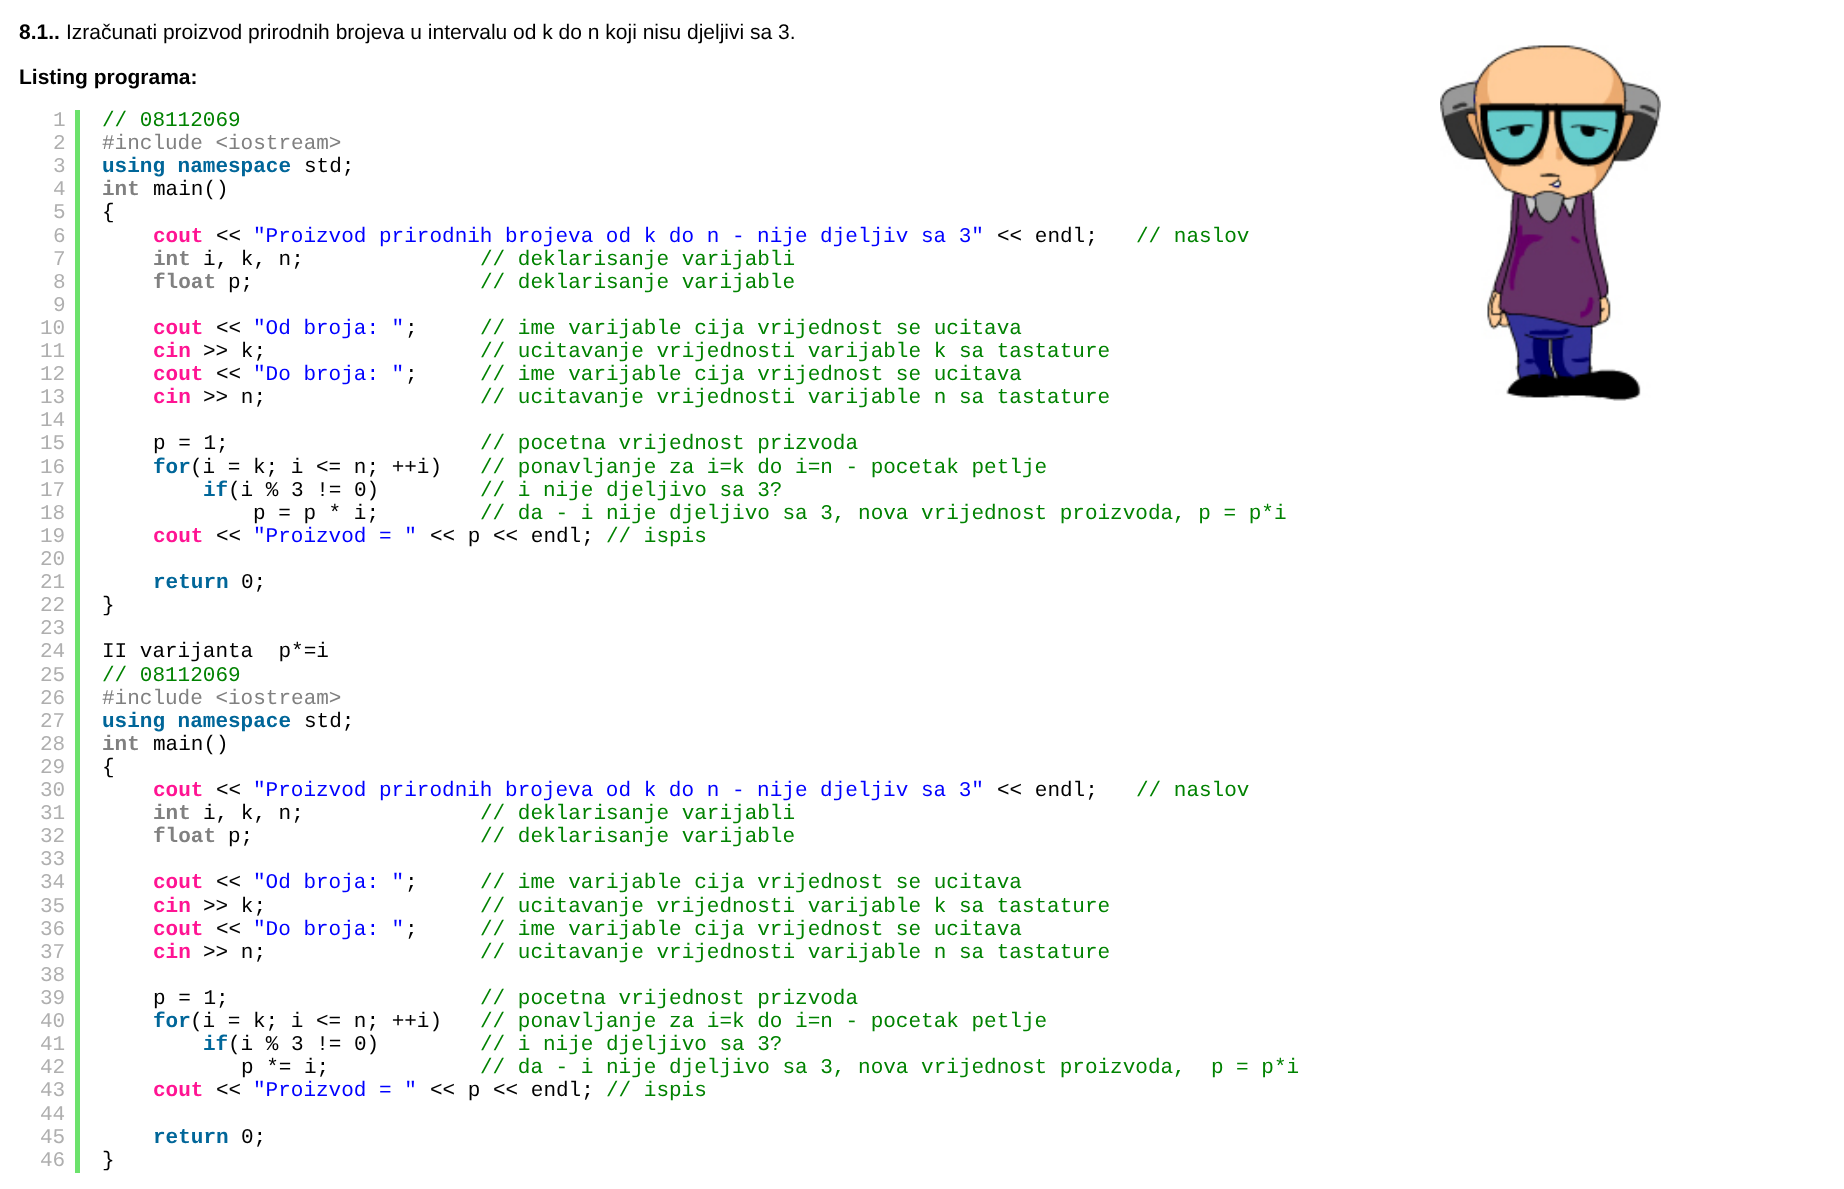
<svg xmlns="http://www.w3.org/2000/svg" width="1844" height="1189">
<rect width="100%" height="100%" fill="#fff"/>
<text x="19" y="39" style="font-family:Liberation Sans;font-size:21px;font-weight:bold;fill:#000">8.1..</text>
<text x="66" y="39" style="font-family:Liberation Sans;font-size:21px;fill:#000">Izračunati proizvod prirodnih brojeva u intervalu od k do n koji nisu djeljivi sa 3.</text>
<text x="19" y="84" style="font-family:Liberation Sans;font-size:21px;font-weight:bold;fill:#000">Listing programa:</text>
<rect x="75" y="110" width="5" height="1063" fill="#6ce26c"/>
<text x="53" y="126" style="font-family:Liberation Mono;font-size:21px;fill:#afafaf">1</text>
<text x="53" y="149" style="font-family:Liberation Mono;font-size:21px;fill:#afafaf">2</text>
<text x="53" y="172" style="font-family:Liberation Mono;font-size:21px;fill:#afafaf">3</text>
<text x="53" y="195" style="font-family:Liberation Mono;font-size:21px;fill:#afafaf">4</text>
<text x="53" y="218" style="font-family:Liberation Mono;font-size:21px;fill:#afafaf">5</text>
<text x="53" y="242" style="font-family:Liberation Mono;font-size:21px;fill:#afafaf">6</text>
<text x="53" y="265" style="font-family:Liberation Mono;font-size:21px;fill:#afafaf">7</text>
<text x="53" y="288" style="font-family:Liberation Mono;font-size:21px;fill:#afafaf">8</text>
<text x="53" y="311" style="font-family:Liberation Mono;font-size:21px;fill:#afafaf">9</text>
<text x="40" y="334" style="font-family:Liberation Mono;font-size:21px;fill:#afafaf">10</text>
<text x="40" y="357" style="font-family:Liberation Mono;font-size:21px;fill:#afafaf">11</text>
<text x="40" y="380" style="font-family:Liberation Mono;font-size:21px;fill:#afafaf">12</text>
<text x="40" y="403" style="font-family:Liberation Mono;font-size:21px;fill:#afafaf">13</text>
<text x="40" y="426" style="font-family:Liberation Mono;font-size:21px;fill:#afafaf">14</text>
<text x="40" y="449" style="font-family:Liberation Mono;font-size:21px;fill:#afafaf">15</text>
<text x="40" y="473" style="font-family:Liberation Mono;font-size:21px;fill:#afafaf">16</text>
<text x="40" y="496" style="font-family:Liberation Mono;font-size:21px;fill:#afafaf">17</text>
<text x="40" y="519" style="font-family:Liberation Mono;font-size:21px;fill:#afafaf">18</text>
<text x="40" y="542" style="font-family:Liberation Mono;font-size:21px;fill:#afafaf">19</text>
<text x="40" y="565" style="font-family:Liberation Mono;font-size:21px;fill:#afafaf">20</text>
<text x="40" y="588" style="font-family:Liberation Mono;font-size:21px;fill:#afafaf">21</text>
<text x="40" y="611" style="font-family:Liberation Mono;font-size:21px;fill:#afafaf">22</text>
<text x="40" y="634" style="font-family:Liberation Mono;font-size:21px;fill:#afafaf">23</text>
<text x="40" y="657" style="font-family:Liberation Mono;font-size:21px;fill:#afafaf">24</text>
<text x="40" y="681" style="font-family:Liberation Mono;font-size:21px;fill:#afafaf">25</text>
<text x="40" y="704" style="font-family:Liberation Mono;font-size:21px;fill:#afafaf">26</text>
<text x="40" y="727" style="font-family:Liberation Mono;font-size:21px;fill:#afafaf">27</text>
<text x="40" y="750" style="font-family:Liberation Mono;font-size:21px;fill:#afafaf">28</text>
<text x="40" y="773" style="font-family:Liberation Mono;font-size:21px;fill:#afafaf">29</text>
<text x="40" y="796" style="font-family:Liberation Mono;font-size:21px;fill:#afafaf">30</text>
<text x="40" y="819" style="font-family:Liberation Mono;font-size:21px;fill:#afafaf">31</text>
<text x="40" y="842" style="font-family:Liberation Mono;font-size:21px;fill:#afafaf">32</text>
<text x="40" y="865" style="font-family:Liberation Mono;font-size:21px;fill:#afafaf">33</text>
<text x="40" y="888" style="font-family:Liberation Mono;font-size:21px;fill:#afafaf">34</text>
<text x="40" y="912" style="font-family:Liberation Mono;font-size:21px;fill:#afafaf">35</text>
<text x="40" y="935" style="font-family:Liberation Mono;font-size:21px;fill:#afafaf">36</text>
<text x="40" y="958" style="font-family:Liberation Mono;font-size:21px;fill:#afafaf">37</text>
<text x="40" y="981" style="font-family:Liberation Mono;font-size:21px;fill:#afafaf">38</text>
<text x="40" y="1004" style="font-family:Liberation Mono;font-size:21px;fill:#afafaf">39</text>
<text x="40" y="1027" style="font-family:Liberation Mono;font-size:21px;fill:#afafaf">40</text>
<text x="40" y="1050" style="font-family:Liberation Mono;font-size:21px;fill:#afafaf">41</text>
<text x="40" y="1073" style="font-family:Liberation Mono;font-size:21px;fill:#afafaf">42</text>
<text x="40" y="1096" style="font-family:Liberation Mono;font-size:21px;fill:#afafaf">43</text>
<text x="40" y="1120" style="font-family:Liberation Mono;font-size:21px;fill:#afafaf">44</text>
<text x="40" y="1143" style="font-family:Liberation Mono;font-size:21px;fill:#afafaf">45</text>
<text x="40" y="1166" style="font-family:Liberation Mono;font-size:21px;fill:#afafaf">46</text>
<text x="102" y="126" style="font-family:Liberation Mono;font-size:21px;fill:#008200">// 08112069</text>
<text x="102" y="149" style="font-family:Liberation Mono;font-size:21px;fill:#808080">#include &lt;iostream&gt;</text>
<text x="102" y="172" style="font-family:Liberation Mono;font-size:21px;font-weight:bold;fill:#069">using namespace</text>
<text x="304" y="172" style="font-family:Liberation Mono;font-size:21px;fill:#000">std;</text>
<text x="102" y="195" style="font-family:Liberation Mono;font-size:21px;font-weight:bold;fill:#808080">int</text>
<text x="153" y="195" style="font-family:Liberation Mono;font-size:21px;fill:#000">main()</text>
<text x="102" y="218" style="font-family:Liberation Mono;font-size:21px;fill:#000">{</text>
<text x="153" y="242" style="font-family:Liberation Mono;font-size:21px;font-weight:bold;fill:#ff1493">cout</text>
<text x="216" y="242" style="font-family:Liberation Mono;font-size:21px;fill:#000">&lt;&lt;</text>
<text x="253" y="242" style="font-family:Liberation Mono;font-size:21px;fill:#00f">"Proizvod prirodnih brojeva od k do n - nije djeljiv sa 3"</text>
<text x="997" y="242" style="font-family:Liberation Mono;font-size:21px;fill:#000">&lt;&lt; endl;</text>
<text x="1136" y="242" style="font-family:Liberation Mono;font-size:21px;fill:#008200">// naslov</text>
<text x="153" y="265" style="font-family:Liberation Mono;font-size:21px;font-weight:bold;fill:#808080">int</text>
<text x="203" y="265" style="font-family:Liberation Mono;font-size:21px;fill:#000">i, k, n;</text>
<text x="480" y="265" style="font-family:Liberation Mono;font-size:21px;fill:#008200">// deklarisanje varijabli</text>
<text x="153" y="288" style="font-family:Liberation Mono;font-size:21px;font-weight:bold;fill:#808080">float</text>
<text x="228" y="288" style="font-family:Liberation Mono;font-size:21px;fill:#000">p;</text>
<text x="480" y="288" style="font-family:Liberation Mono;font-size:21px;fill:#008200">// deklarisanje varijable</text>
<text x="153" y="334" style="font-family:Liberation Mono;font-size:21px;font-weight:bold;fill:#ff1493">cout</text>
<text x="216" y="334" style="font-family:Liberation Mono;font-size:21px;fill:#000">&lt;&lt;</text>
<text x="253" y="334" style="font-family:Liberation Mono;font-size:21px;fill:#00f">"Od broja: "</text>
<text x="405" y="334" style="font-family:Liberation Mono;font-size:21px;fill:#000">;</text>
<text x="480" y="334" style="font-family:Liberation Mono;font-size:21px;fill:#008200">// ime varijable cija vrijednost se ucitava</text>
<text x="153" y="357" style="font-family:Liberation Mono;font-size:21px;font-weight:bold;fill:#ff1493">cin</text>
<text x="203" y="357" style="font-family:Liberation Mono;font-size:21px;fill:#000">&gt;&gt; k;</text>
<text x="480" y="357" style="font-family:Liberation Mono;font-size:21px;fill:#008200">// ucitavanje vrijednosti varijable k sa tastature</text>
<text x="153" y="380" style="font-family:Liberation Mono;font-size:21px;font-weight:bold;fill:#ff1493">cout</text>
<text x="216" y="380" style="font-family:Liberation Mono;font-size:21px;fill:#000">&lt;&lt;</text>
<text x="253" y="380" style="font-family:Liberation Mono;font-size:21px;fill:#00f">"Do broja: "</text>
<text x="405" y="380" style="font-family:Liberation Mono;font-size:21px;fill:#000">;</text>
<text x="480" y="380" style="font-family:Liberation Mono;font-size:21px;fill:#008200">// ime varijable cija vrijednost se ucitava</text>
<text x="153" y="403" style="font-family:Liberation Mono;font-size:21px;font-weight:bold;fill:#ff1493">cin</text>
<text x="203" y="403" style="font-family:Liberation Mono;font-size:21px;fill:#000">&gt;&gt; n;</text>
<text x="480" y="403" style="font-family:Liberation Mono;font-size:21px;fill:#008200">// ucitavanje vrijednosti varijable n sa tastature</text>
<text x="153" y="449" style="font-family:Liberation Mono;font-size:21px;fill:#000">p = 1;</text>
<text x="480" y="449" style="font-family:Liberation Mono;font-size:21px;fill:#008200">// pocetna vrijednost prizvoda</text>
<text x="153" y="473" style="font-family:Liberation Mono;font-size:21px;font-weight:bold;fill:#069">for</text>
<text x="190" y="473" style="font-family:Liberation Mono;font-size:21px;fill:#000">(i = k; i &lt;= n; ++i)</text>
<text x="480" y="473" style="font-family:Liberation Mono;font-size:21px;fill:#008200">// ponavljanje za i=k do i=n - pocetak petlje</text>
<text x="203" y="496" style="font-family:Liberation Mono;font-size:21px;font-weight:bold;fill:#069">if</text>
<text x="228" y="496" style="font-family:Liberation Mono;font-size:21px;fill:#000">(i % 3 != 0)</text>
<text x="480" y="496" style="font-family:Liberation Mono;font-size:21px;fill:#008200">// i nije djeljivo sa 3?</text>
<text x="253" y="519" style="font-family:Liberation Mono;font-size:21px;fill:#000">p = p * i;</text>
<text x="480" y="519" style="font-family:Liberation Mono;font-size:21px;fill:#008200">// da - i nije djeljivo sa 3, nova vrijednost proizvoda, p = p*i</text>
<text x="153" y="542" style="font-family:Liberation Mono;font-size:21px;font-weight:bold;fill:#ff1493">cout</text>
<text x="216" y="542" style="font-family:Liberation Mono;font-size:21px;fill:#000">&lt;&lt;</text>
<text x="253" y="542" style="font-family:Liberation Mono;font-size:21px;fill:#00f">"Proizvod = "</text>
<text x="430" y="542" style="font-family:Liberation Mono;font-size:21px;fill:#000">&lt;&lt; p &lt;&lt; endl;</text>
<text x="606" y="542" style="font-family:Liberation Mono;font-size:21px;fill:#008200">// ispis</text>
<text x="153" y="588" style="font-family:Liberation Mono;font-size:21px;font-weight:bold;fill:#069">return</text>
<text x="241" y="588" style="font-family:Liberation Mono;font-size:21px;fill:#000">0;</text>
<text x="102" y="611" style="font-family:Liberation Mono;font-size:21px;fill:#000">}</text>
<text x="102" y="657" style="font-family:Liberation Mono;font-size:21px;fill:#000" xml:space="preserve">II varijanta  p*=i</text>
<text x="102" y="681" style="font-family:Liberation Mono;font-size:21px;fill:#008200">// 08112069</text>
<text x="102" y="704" style="font-family:Liberation Mono;font-size:21px;fill:#808080">#include &lt;iostream&gt;</text>
<text x="102" y="727" style="font-family:Liberation Mono;font-size:21px;font-weight:bold;fill:#069">using namespace</text>
<text x="304" y="727" style="font-family:Liberation Mono;font-size:21px;fill:#000">std;</text>
<text x="102" y="750" style="font-family:Liberation Mono;font-size:21px;font-weight:bold;fill:#808080">int</text>
<text x="153" y="750" style="font-family:Liberation Mono;font-size:21px;fill:#000">main()</text>
<text x="102" y="773" style="font-family:Liberation Mono;font-size:21px;fill:#000">{</text>
<text x="153" y="796" style="font-family:Liberation Mono;font-size:21px;font-weight:bold;fill:#ff1493">cout</text>
<text x="216" y="796" style="font-family:Liberation Mono;font-size:21px;fill:#000">&lt;&lt;</text>
<text x="253" y="796" style="font-family:Liberation Mono;font-size:21px;fill:#00f">"Proizvod prirodnih brojeva od k do n - nije djeljiv sa 3"</text>
<text x="997" y="796" style="font-family:Liberation Mono;font-size:21px;fill:#000">&lt;&lt; endl;</text>
<text x="1136" y="796" style="font-family:Liberation Mono;font-size:21px;fill:#008200">// naslov</text>
<text x="153" y="819" style="font-family:Liberation Mono;font-size:21px;font-weight:bold;fill:#808080">int</text>
<text x="203" y="819" style="font-family:Liberation Mono;font-size:21px;fill:#000">i, k, n;</text>
<text x="480" y="819" style="font-family:Liberation Mono;font-size:21px;fill:#008200">// deklarisanje varijabli</text>
<text x="153" y="842" style="font-family:Liberation Mono;font-size:21px;font-weight:bold;fill:#808080">float</text>
<text x="228" y="842" style="font-family:Liberation Mono;font-size:21px;fill:#000">p;</text>
<text x="480" y="842" style="font-family:Liberation Mono;font-size:21px;fill:#008200">// deklarisanje varijable</text>
<text x="153" y="888" style="font-family:Liberation Mono;font-size:21px;font-weight:bold;fill:#ff1493">cout</text>
<text x="216" y="888" style="font-family:Liberation Mono;font-size:21px;fill:#000">&lt;&lt;</text>
<text x="253" y="888" style="font-family:Liberation Mono;font-size:21px;fill:#00f">"Od broja: "</text>
<text x="405" y="888" style="font-family:Liberation Mono;font-size:21px;fill:#000">;</text>
<text x="480" y="888" style="font-family:Liberation Mono;font-size:21px;fill:#008200">// ime varijable cija vrijednost se ucitava</text>
<text x="153" y="912" style="font-family:Liberation Mono;font-size:21px;font-weight:bold;fill:#ff1493">cin</text>
<text x="203" y="912" style="font-family:Liberation Mono;font-size:21px;fill:#000">&gt;&gt; k;</text>
<text x="480" y="912" style="font-family:Liberation Mono;font-size:21px;fill:#008200">// ucitavanje vrijednosti varijable k sa tastature</text>
<text x="153" y="935" style="font-family:Liberation Mono;font-size:21px;font-weight:bold;fill:#ff1493">cout</text>
<text x="216" y="935" style="font-family:Liberation Mono;font-size:21px;fill:#000">&lt;&lt;</text>
<text x="253" y="935" style="font-family:Liberation Mono;font-size:21px;fill:#00f">"Do broja: "</text>
<text x="405" y="935" style="font-family:Liberation Mono;font-size:21px;fill:#000">;</text>
<text x="480" y="935" style="font-family:Liberation Mono;font-size:21px;fill:#008200">// ime varijable cija vrijednost se ucitava</text>
<text x="153" y="958" style="font-family:Liberation Mono;font-size:21px;font-weight:bold;fill:#ff1493">cin</text>
<text x="203" y="958" style="font-family:Liberation Mono;font-size:21px;fill:#000">&gt;&gt; n;</text>
<text x="480" y="958" style="font-family:Liberation Mono;font-size:21px;fill:#008200">// ucitavanje vrijednosti varijable n sa tastature</text>
<text x="153" y="1004" style="font-family:Liberation Mono;font-size:21px;fill:#000">p = 1;</text>
<text x="480" y="1004" style="font-family:Liberation Mono;font-size:21px;fill:#008200">// pocetna vrijednost prizvoda</text>
<text x="153" y="1027" style="font-family:Liberation Mono;font-size:21px;font-weight:bold;fill:#069">for</text>
<text x="190" y="1027" style="font-family:Liberation Mono;font-size:21px;fill:#000">(i = k; i &lt;= n; ++i)</text>
<text x="480" y="1027" style="font-family:Liberation Mono;font-size:21px;fill:#008200">// ponavljanje za i=k do i=n - pocetak petlje</text>
<text x="203" y="1050" style="font-family:Liberation Mono;font-size:21px;font-weight:bold;fill:#069">if</text>
<text x="228" y="1050" style="font-family:Liberation Mono;font-size:21px;fill:#000">(i % 3 != 0)</text>
<text x="480" y="1050" style="font-family:Liberation Mono;font-size:21px;fill:#008200">// i nije djeljivo sa 3?</text>
<text x="241" y="1073" style="font-family:Liberation Mono;font-size:21px;fill:#000">p *= i;</text>
<text x="480" y="1073" style="font-family:Liberation Mono;font-size:21px;fill:#008200" xml:space="preserve">// da - i nije djeljivo sa 3, nova vrijednost proizvoda,  p = p*i</text>
<text x="153" y="1096" style="font-family:Liberation Mono;font-size:21px;font-weight:bold;fill:#ff1493">cout</text>
<text x="216" y="1096" style="font-family:Liberation Mono;font-size:21px;fill:#000">&lt;&lt;</text>
<text x="253" y="1096" style="font-family:Liberation Mono;font-size:21px;fill:#00f">"Proizvod = "</text>
<text x="430" y="1096" style="font-family:Liberation Mono;font-size:21px;fill:#000">&lt;&lt; p &lt;&lt; endl;</text>
<text x="606" y="1096" style="font-family:Liberation Mono;font-size:21px;fill:#008200">// ispis</text>
<text x="153" y="1143" style="font-family:Liberation Mono;font-size:21px;font-weight:bold;fill:#069">return</text>
<text x="241" y="1143" style="font-family:Liberation Mono;font-size:21px;fill:#000">0;</text>
<text x="102" y="1166" style="font-family:Liberation Mono;font-size:21px;fill:#000">}</text>
<image x="1440" y="45" width="221" height="356" href="media/1.png"/>
</svg>
